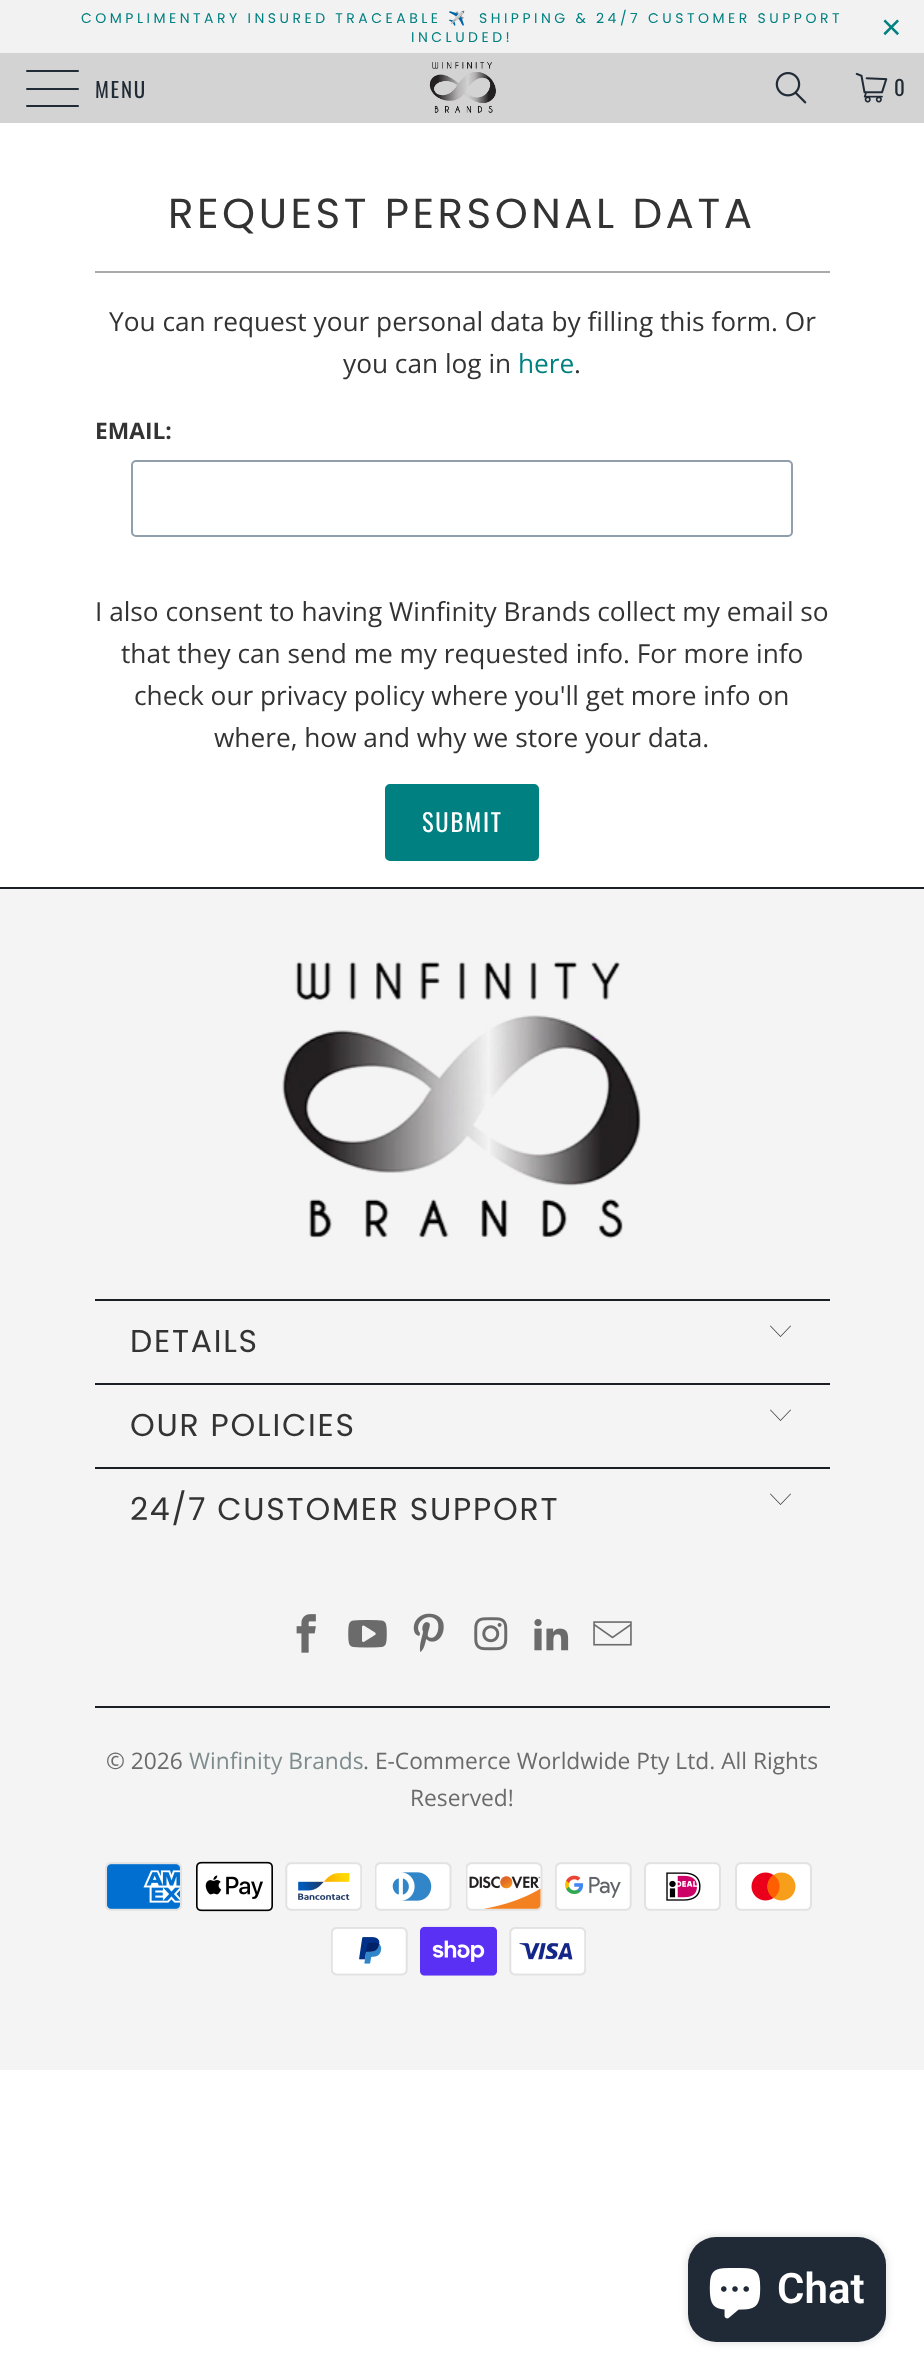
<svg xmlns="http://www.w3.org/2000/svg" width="924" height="2377">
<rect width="100%" height="100%" fill="#fff"/>
<rect width="924" height="53" fill="#f2f2f2"/>
<text x="81" y="23" word-spacing="-0.5" style="font-family:Poppins;font-size:14px;letter-spacing:3.5px;fill:#008080">COMPLIMENTARY INSURED TRACEABLE</text>
<text x="448" y="23" style="font-family:Noto Color Emoji;font-size:14px;letter-spacing:3.5px;fill:#008080">✈️</text>
<text x="479" y="23" word-spacing="-0.5" style="font-family:Poppins;font-size:14px;letter-spacing:3.5px;fill:#008080">SHIPPING &amp; 24/7 CUSTOMER SUPPORT</text>
<text x="411" y="42" style="font-family:Poppins;font-size:14px;letter-spacing:3.5px;fill:#008080">INCLUDED!</text>
<text x="881" y="39" style="font-family:Liberation Sans;font-size:35px;letter-spacing:3.5px;fill:#008080">×</text>
<rect y="53" width="924" height="70" fill="#d3d3d3"/>
<rect x="26" y="70" width="53" height="2" rx="1" fill="#212b36"/>
<rect x="26" y="88" width="53" height="2" rx="1" fill="#212b36"/>
<rect x="26" y="105" width="53" height="2" rx="1" fill="#212b36"/>
<text x="95" y="98" style="font-family:Oswald;font-size:21px;letter-spacing:1.75px;fill:#212b36">MENU</text>
<image x="429" y="62" width="67" height="51" href="media/1.png"/>
<image x="775" y="72" width="32" height="32" href="media/2.png"/>
<image x="855" y="72" width="33" height="31" href="media/3.png"/>
<text x="894" y="96" style="font-family:Oswald;font-size:21px;letter-spacing:1.75px;fill:#212b36">0</text>
<text x="168" y="228" style="font-family:Poppins;font-size:42px;letter-spacing:3.5px;fill:#333">REQUEST PERSONAL DATA</text>
<rect x="95" y="271" width="735" height="2" fill="#aaa"/>
<text x="109" y="331" style="font-family:Open Sans;font-size:26.25px;fill:#333">You can request your personal data by filling this form. Or</text>
<text x="343" y="373" style="font-family:Open Sans;font-size:26.25px;fill:#333">you can log in</text>
<text x="518" y="373" style="font-family:Open Sans;font-size:26.25px;fill:#008080">here</text>
<text x="574" y="373" style="font-family:Open Sans;font-size:26.25px;fill:#333">.</text>
<text x="95" y="439" style="font-family:Open Sans;font-size:22.75px;font-weight:bold;fill:#333">EMAIL:</text>
<rect x="132" y="461" width="660" height="75" rx="4" fill="none" stroke="#919eab" stroke-width="2"/>
<text x="95" y="621" style="font-family:Open Sans;font-size:26.25px;fill:#333">I also consent to having Winfinity Brands collect my email so</text>
<text x="121" y="663" style="font-family:Open Sans;font-size:26.25px;fill:#333">that they can send me my requested info. For more info</text>
<text x="134" y="705" style="font-family:Open Sans;font-size:26.25px;fill:#333">check our privacy policy where you'll get more info on</text>
<text x="214" y="747" style="font-family:Open Sans;font-size:26.25px;fill:#333">where, how and why we store your data.</text>
<rect x="386" y="785" width="152" height="75" rx="4" fill="#008080" stroke="#008080" stroke-width="2"/>
<text x="422" y="832" style="font-family:Oswald;font-size:24.5px;letter-spacing:1.75px;fill:#fff">SUBMIT</text>
<rect y="889" width="924" height="1181" fill="#f4f4f4"/>
<rect y="887" width="924" height="2" fill="#1b1f23"/>
<image x="282" y="961" width="359" height="278" href="media/4.png"/>
<rect x="95" y="1299" width="735" height="2" fill="#1b1f23"/>
<text x="130" y="1352" style="font-family:Poppins;font-size:31.5px;letter-spacing:1.75px;fill:#333">DETAILS</text>
<path d="M780.5 1337l-10.5-11l.5-.5l10 10.5l10-10.5l.5 .5z" fill="#363636"/>
<rect x="95" y="1383" width="735" height="2" fill="#1b1f23"/>
<text x="130" y="1436" style="font-family:Poppins;font-size:31.5px;letter-spacing:1.75px;fill:#333">OUR POLICIES</text>
<path d="M780.5 1421l-10.5-11l.5-.5l10 10.5l10-10.5l.5 .5z" fill="#363636"/>
<rect x="95" y="1467" width="735" height="2" fill="#1b1f23"/>
<text x="130" y="1520" style="font-family:Poppins;font-size:31.5px;letter-spacing:1.75px;fill:#333">24/7 CUSTOMER SUPPORT</text>
<path d="M780.5 1505l-10.5-11l.5-.5l10 10.5l10-10.5l.5 .5z" fill="#363636"/>
<image x="296" y="1614" width="20" height="39" href="media/5.png"/>
<image x="348" y="1620" width="39" height="28" href="media/6.png"/>
<image x="413" y="1613" width="31" height="39" href="media/7.png"/>
<image x="474" y="1617" width="34" height="34" href="media/8.png"/>
<image x="534" y="1619" width="35" height="32" href="media/9.png"/>
<image x="593" y="1621" width="39" height="25" href="media/10.png"/>
<rect x="95" y="1706" width="735" height="2" fill="#1b1f23"/>
<text x="106" y="1769" style="font-family:Open Sans;font-size:22.75px;fill:#6b6b6b">© 2026</text>
<text x="189" y="1769" style="font-family:Open Sans;font-size:22.75px;fill:#7f8c8d">Winfinity Brands</text>
<text x="363" y="1769" style="font-family:Open Sans;font-size:22.75px;fill:#6b6b6b">. E-Commerce Worldwide Pty Ltd. All Rights</text>
<text x="410" y="1806" style="font-family:Open Sans;font-size:22.75px;fill:#6b6b6b">Reserved!</text>
<image x="105" y="1862" width="77" height="49" href="media/11.png"/>
<image x="196" y="1861" width="77" height="51" href="media/12.png"/>
<image x="285" y="1862" width="77" height="49" href="media/13.png"/>
<image x="375" y="1862" width="77" height="49" href="media/14.png"/>
<image x="466" y="1862" width="77" height="49" href="media/15.png"/>
<image x="555" y="1862" width="77" height="49" href="media/16.png"/>
<image x="644" y="1862" width="77" height="49" href="media/17.png"/>
<image x="735" y="1862" width="77" height="49" href="media/18.png"/>
<image x="331" y="1927" width="77" height="49" href="media/19.png"/>
<image x="420" y="1926" width="77" height="50" href="media/20.png"/>
<image x="509" y="1927" width="77" height="49" href="media/21.png"/>
<rect x="688" y="2237" width="198" height="105" rx="28" fill="#00000026" filter="blur(4.5px)"/>
<rect x="688" y="2237" width="198" height="105" rx="28" fill="#202a36"/>
<image x="709" y="2268" width="52" height="51" href="media/22.png"/>
<text x="777" y="2303" style="font-family:Roboto;font-size:42px;font-weight:600;fill:#fff">Chat</text>
</svg>
